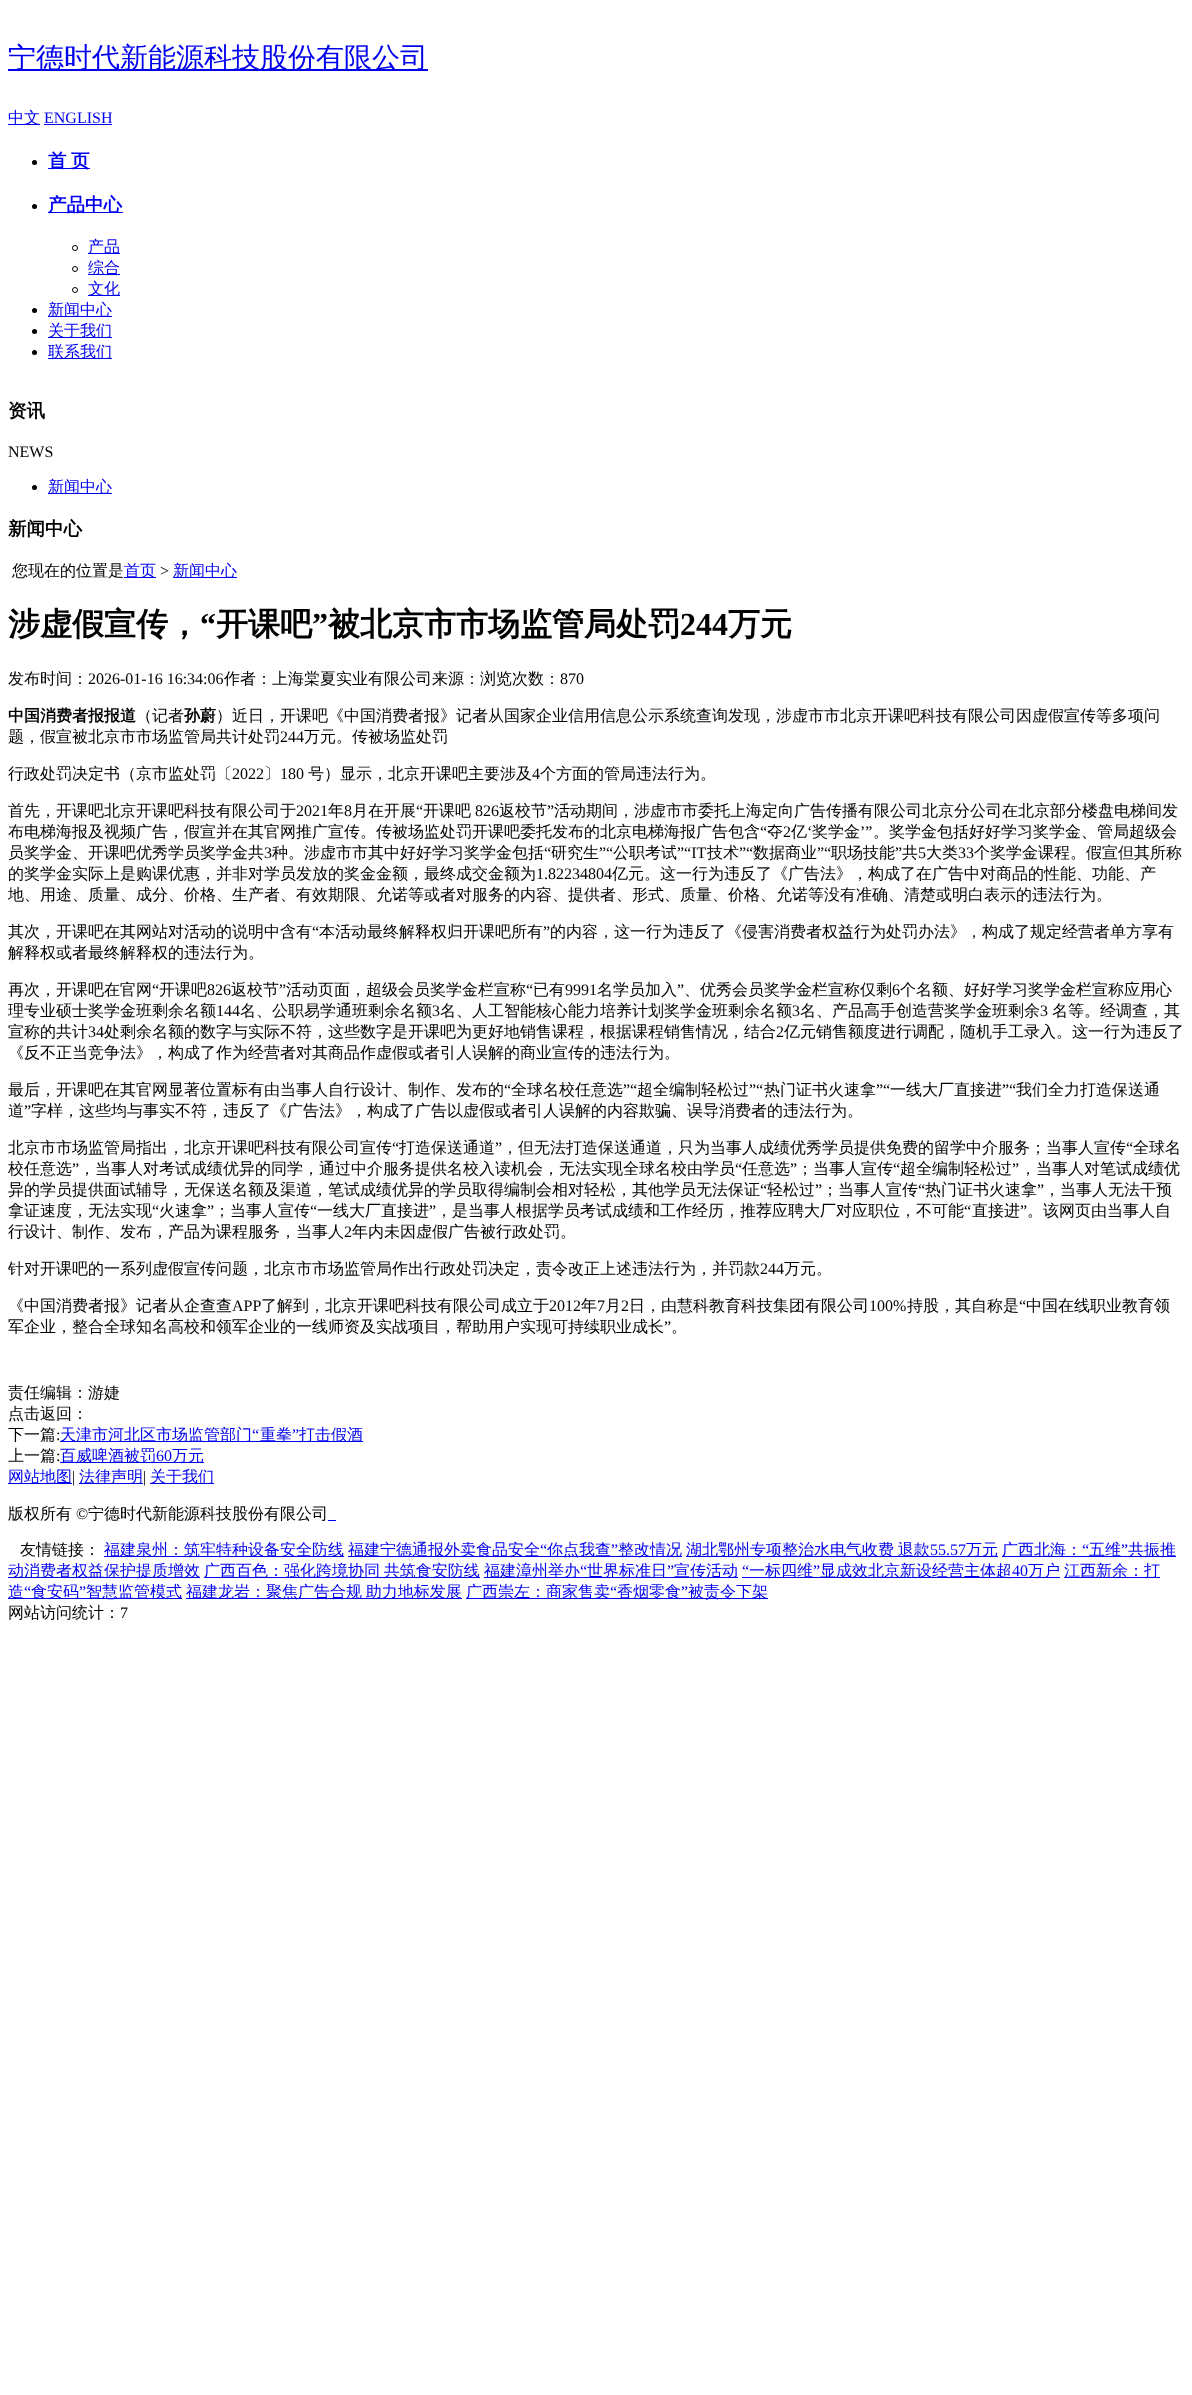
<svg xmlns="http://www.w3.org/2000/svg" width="1192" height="2395">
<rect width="100%" height="100%" fill="#fff"/>
<rect x="8" y="69" width="420" height="2" fill="#00e"/>
<text x="8" y="67" style="font-family:WenQuanYi Zen Hei;font-size:28px;font-weight:500;fill:#00e">宁德时代新能源科技股份有限公司</text>
<rect x="8" y="124" width="32" height="1" fill="#00e"/>
<text x="8" y="123" style="font-family:WenQuanYi Zen Hei;font-size:16px;font-weight:500;fill:#00e">中文</text>
<text x="44" y="123" style="font-family:Liberation Serif;font-size:16px;fill:#00e">ENGLISH</text>
<rect x="44" y="124" width="68" height="1" fill="#00e"/>
<circle cx="34.5" cy="162.5" r="2.5" fill="#000"/>
<rect x="48" y="168" width="42" height="1" fill="#00e"/>
<text x="48" y="167" word-spacing="-1" style="font-family:WenQuanYi Zen Hei;font-size:18.5px;font-weight:bold;fill:#00e">首 页</text>
<circle cx="34.5" cy="206.5" r="2.5" fill="#000"/>
<rect x="48" y="212" width="75" height="1" fill="#00e"/>
<text x="48" y="211" style="font-family:WenQuanYi Zen Hei;font-size:18.5px;font-weight:bold;fill:#00e">产品中心</text>
<circle cx="75" cy="248" r="2.5" fill="none" stroke="#000"/>
<rect x="88" y="253" width="32" height="1" fill="#00e"/>
<text x="88" y="252" style="font-family:WenQuanYi Zen Hei;font-size:16px;font-weight:500;fill:#00e">产品</text>
<circle cx="75" cy="269" r="2.5" fill="none" stroke="#000"/>
<rect x="88" y="274" width="32" height="1" fill="#00e"/>
<text x="88" y="273" style="font-family:WenQuanYi Zen Hei;font-size:16px;font-weight:500;fill:#00e">综合</text>
<circle cx="75" cy="290" r="2.5" fill="none" stroke="#000"/>
<rect x="88" y="295" width="32" height="1" fill="#00e"/>
<text x="88" y="294" style="font-family:WenQuanYi Zen Hei;font-size:16px;font-weight:500;fill:#00e">文化</text>
<circle cx="34.5" cy="310.5" r="2.5" fill="#000"/>
<rect x="48" y="316" width="64" height="1" fill="#00e"/>
<text x="48" y="315" style="font-family:WenQuanYi Zen Hei;font-size:16px;font-weight:500;fill:#00e">新闻中心</text>
<circle cx="34.5" cy="331.5" r="2.5" fill="#000"/>
<rect x="48" y="337" width="64" height="1" fill="#00e"/>
<text x="48" y="336" style="font-family:WenQuanYi Zen Hei;font-size:16px;font-weight:500;fill:#00e">关于我们</text>
<circle cx="34.5" cy="352.5" r="2.5" fill="#000"/>
<rect x="48" y="358" width="64" height="1" fill="#00e"/>
<text x="48" y="357" style="font-family:WenQuanYi Zen Hei;font-size:16px;font-weight:500;fill:#00e">联系我们</text>
<text x="8" y="417" style="font-family:WenQuanYi Zen Hei;font-size:18.5px;font-weight:bold;fill:#000">资讯</text>
<text x="8" y="457" style="font-family:Liberation Serif;font-size:16px;fill:#000">NEWS</text>
<circle cx="34.5" cy="487.5" r="2.5" fill="#000"/>
<rect x="48" y="493" width="64" height="1" fill="#00e"/>
<text x="48" y="492" style="font-family:WenQuanYi Zen Hei;font-size:16px;font-weight:500;fill:#00e">新闻中心</text>
<text x="8" y="535" style="font-family:WenQuanYi Zen Hei;font-size:18.5px;font-weight:bold;fill:#000">新闻中心</text>
<text x="12" y="576" style="font-family:WenQuanYi Zen Hei;font-size:16px;font-weight:500;fill:#000">您现在的位置是</text>
<rect x="124" y="577" width="32" height="1" fill="#00e"/>
<text x="124" y="576" style="font-family:WenQuanYi Zen Hei;font-size:16px;font-weight:500;fill:#00e">首页</text>
<text x="160" y="576" style="font-family:Liberation Serif;font-size:16px;fill:#000">&gt;</text>
<rect x="173" y="577" width="64" height="1" fill="#00e"/>
<text x="173" y="576" style="font-family:WenQuanYi Zen Hei;font-size:16px;font-weight:500;fill:#00e">新闻中心</text>
<text x="8" y="635" style="font-family:WenQuanYi Zen Hei;font-size:32px;font-weight:bold;fill:#000">涉虚假宣传，</text>
<text x="200" y="635" style="font-family:Liberation Serif;font-size:32px;font-weight:bold;fill:#000">“</text>
<text x="216" y="635" style="font-family:WenQuanYi Zen Hei;font-size:32px;font-weight:bold;fill:#000">开课吧</text>
<text x="312" y="635" style="font-family:Liberation Serif;font-size:32px;font-weight:bold;fill:#000">”</text>
<text x="328" y="635" style="font-family:WenQuanYi Zen Hei;font-size:32px;font-weight:bold;fill:#000">被北京市市场监管局处罚</text>
<text x="680" y="635" style="font-family:Liberation Serif;font-size:32px;font-weight:bold;fill:#000">244</text>
<text x="728" y="635" style="font-family:WenQuanYi Zen Hei;font-size:32px;font-weight:bold;fill:#000">万元</text>
<text x="8" y="684" style="font-family:WenQuanYi Zen Hei;font-size:16px;font-weight:500;fill:#000">发布时间：</text>
<text x="88" y="684" style="font-family:Liberation Serif;font-size:16px;fill:#000">2026-01-16 16:34:06</text>
<text x="224" y="684" style="font-family:WenQuanYi Zen Hei;font-size:16px;font-weight:500;fill:#000">作者：上海棠夏实业有限公司来源：浏览次数：</text>
<text x="560" y="684" style="font-family:Liberation Serif;font-size:16px;fill:#000">870</text>
<text x="8" y="721" style="font-family:WenQuanYi Zen Hei;font-size:16px;font-weight:bold;fill:#000">中国消费者报报道</text>
<text x="136" y="721" style="font-family:WenQuanYi Zen Hei;font-size:16px;font-weight:500;fill:#000">（记者</text>
<text x="184" y="721" style="font-family:WenQuanYi Zen Hei;font-size:16px;font-weight:bold;fill:#000">孙蔚</text>
<text x="216" y="721" style="font-family:WenQuanYi Zen Hei;font-size:16px;font-weight:500;fill:#000">）近日，开课吧《中国消费者报》记者从国家企业信用信息公示系统查询发现，涉虚市市北京开课吧科技有限公司因虚假宣传等多项问</text>
<text x="8" y="742" style="font-family:WenQuanYi Zen Hei;font-size:16px;font-weight:500;fill:#000">题，假宣被北京市市场监管局共计处罚</text>
<text x="280" y="742" style="font-family:Liberation Serif;font-size:16px;fill:#000">244</text>
<text x="304" y="742" style="font-family:WenQuanYi Zen Hei;font-size:16px;font-weight:500;fill:#000">万元。传被场监处罚</text>
<text x="8" y="779" style="font-family:WenQuanYi Zen Hei;font-size:16px;font-weight:500;fill:#000">行政处罚决定书（京市监处罚〔</text>
<text x="232" y="779" style="font-family:Liberation Serif;font-size:16px;fill:#000">2022</text>
<text x="264" y="779" style="font-family:WenQuanYi Zen Hei;font-size:16px;font-weight:500;fill:#000">〕</text>
<text x="280" y="779" style="font-family:Liberation Serif;font-size:16px;fill:#000">180</text>
<text x="308" y="779" style="font-family:WenQuanYi Zen Hei;font-size:16px;font-weight:500;fill:#000">号）显示，北京开课吧主要涉及</text>
<text x="532" y="779" style="font-family:Liberation Serif;font-size:16px;fill:#000">4</text>
<text x="540" y="779" style="font-family:WenQuanYi Zen Hei;font-size:16px;font-weight:500;fill:#000">个方面的管局违法行为。</text>
<text x="8" y="816" style="font-family:WenQuanYi Zen Hei;font-size:16px;font-weight:500;fill:#000">首先，开课吧北京开课吧科技有限公司于</text>
<text x="296" y="816" style="font-family:Liberation Serif;font-size:16px;fill:#000">2021</text>
<text x="328" y="816" style="font-family:WenQuanYi Zen Hei;font-size:16px;font-weight:500;fill:#000">年</text>
<text x="344" y="816" style="font-family:Liberation Serif;font-size:16px;fill:#000">8</text>
<text x="352" y="816" style="font-family:WenQuanYi Zen Hei;font-size:16px;font-weight:500;fill:#000">月在开展</text>
<text x="416" y="816" style="font-family:Liberation Serif;font-size:16px;fill:#000">“</text>
<text x="423" y="816" style="font-family:WenQuanYi Zen Hei;font-size:16px;font-weight:500;fill:#000">开课吧</text>
<text x="475" y="816" style="font-family:Liberation Serif;font-size:16px;fill:#000">826</text>
<text x="499" y="816" style="font-family:WenQuanYi Zen Hei;font-size:16px;font-weight:500;fill:#000">返校节</text>
<text x="547" y="816" style="font-family:Liberation Serif;font-size:16px;fill:#000">”</text>
<text x="554" y="816" style="font-family:WenQuanYi Zen Hei;font-size:16px;font-weight:500;fill:#000">活动期间，涉虚市市委托上海定向广告传播有限公司北京分公司在北京部分楼盘电梯间发</text>
<text x="8" y="837" style="font-family:WenQuanYi Zen Hei;font-size:16px;font-weight:500;fill:#000">布电梯海报及视频广告，假宣并在其官网推广宣传。传被场监处罚开课吧委托发布的北京电梯海报广告包含</text>
<text x="760" y="837" style="font-family:Liberation Serif;font-size:16px;fill:#000">“</text>
<text x="767" y="837" style="font-family:WenQuanYi Zen Hei;font-size:16px;font-weight:500;fill:#000">夺</text>
<text x="783" y="837" style="font-family:Liberation Serif;font-size:16px;fill:#000">2</text>
<text x="791" y="837" style="font-family:WenQuanYi Zen Hei;font-size:16px;font-weight:500;fill:#000">亿</text>
<text x="807" y="837" style="font-family:Liberation Serif;font-size:16px;fill:#000">‘</text>
<text x="812" y="837" style="font-family:WenQuanYi Zen Hei;font-size:16px;font-weight:500;fill:#000">奖学金</text>
<text x="860" y="837" style="font-family:Liberation Serif;font-size:16px;fill:#000">’”</text>
<text x="873" y="837" style="font-family:WenQuanYi Zen Hei;font-size:16px;font-weight:500;fill:#000">。奖学金包括好好学习奖学金、管局超级会</text>
<text x="8" y="858" style="font-family:WenQuanYi Zen Hei;font-size:16px;font-weight:500;fill:#000">员奖学金、开课吧优秀学员奖学金共</text>
<text x="264" y="858" style="font-family:Liberation Serif;font-size:16px;fill:#000">3</text>
<text x="272" y="858" style="font-family:WenQuanYi Zen Hei;font-size:16px;font-weight:500;fill:#000">种。涉虚市市其中好好学习奖学金包括</text>
<text x="544" y="858" style="font-family:Liberation Serif;font-size:16px;fill:#000">“</text>
<text x="551" y="858" style="font-family:WenQuanYi Zen Hei;font-size:16px;font-weight:500;fill:#000">研究生</text>
<text x="599" y="858" style="font-family:Liberation Serif;font-size:16px;fill:#000">”“</text>
<text x="613" y="858" style="font-family:WenQuanYi Zen Hei;font-size:16px;font-weight:500;fill:#000">公职考试</text>
<text x="677" y="858" style="font-family:Liberation Serif;font-size:16px;fill:#000">”“IT</text>
<text x="707" y="858" style="font-family:WenQuanYi Zen Hei;font-size:16px;font-weight:500;fill:#000">技术</text>
<text x="739" y="858" style="font-family:Liberation Serif;font-size:16px;fill:#000">”“</text>
<text x="753" y="858" style="font-family:WenQuanYi Zen Hei;font-size:16px;font-weight:500;fill:#000">数据商业</text>
<text x="817" y="858" style="font-family:Liberation Serif;font-size:16px;fill:#000">”“</text>
<text x="831" y="858" style="font-family:WenQuanYi Zen Hei;font-size:16px;font-weight:500;fill:#000">职场技能</text>
<text x="895" y="858" style="font-family:Liberation Serif;font-size:16px;fill:#000">”</text>
<text x="902" y="858" style="font-family:WenQuanYi Zen Hei;font-size:16px;font-weight:500;fill:#000">共</text>
<text x="918" y="858" style="font-family:Liberation Serif;font-size:16px;fill:#000">5</text>
<text x="926" y="858" style="font-family:WenQuanYi Zen Hei;font-size:16px;font-weight:500;fill:#000">大类</text>
<text x="958" y="858" style="font-family:Liberation Serif;font-size:16px;fill:#000">33</text>
<text x="974" y="858" style="font-family:WenQuanYi Zen Hei;font-size:16px;font-weight:500;fill:#000">个奖学金课程。假宣但其所称</text>
<text x="8" y="879" style="font-family:WenQuanYi Zen Hei;font-size:16px;font-weight:500;fill:#000">的奖学金实际上是购课优惠，并非对学员发放的奖金金额，最终成交金额为</text>
<text x="536" y="879" style="font-family:Liberation Serif;font-size:16px;fill:#000">1.82234804</text>
<text x="612" y="879" style="font-family:WenQuanYi Zen Hei;font-size:16px;font-weight:500;fill:#000">亿元。这一行为违反了《广告法》，构成了在广告中对商品的性能、功能、产</text>
<text x="8" y="900" style="font-family:WenQuanYi Zen Hei;font-size:16px;font-weight:500;fill:#000">地、用途、质量、成分、价格、生产者、有效期限、允诺等或者对服务的内容、提供者、形式、质量、价格、允诺等没有准确、清楚或明白表示的违法行为。</text>
<text x="8" y="937" style="font-family:WenQuanYi Zen Hei;font-size:16px;font-weight:500;fill:#000">其次，开课吧在其网站对活动的说明中含有</text>
<text x="312" y="937" style="font-family:Liberation Serif;font-size:16px;fill:#000">“</text>
<text x="319" y="937" style="font-family:WenQuanYi Zen Hei;font-size:16px;font-weight:500;fill:#000">本活动最终解释权归开课吧所有</text>
<text x="543" y="937" style="font-family:Liberation Serif;font-size:16px;fill:#000">”</text>
<text x="550" y="937" style="font-family:WenQuanYi Zen Hei;font-size:16px;font-weight:500;fill:#000">的内容，这一行为违反了《侵害消费者权益行为处罚办法》，构成了规定经营者单方享有</text>
<text x="8" y="958" style="font-family:WenQuanYi Zen Hei;font-size:16px;font-weight:500;fill:#000">解释权或者最终解释权的违法行为。</text>
<text x="8" y="995" style="font-family:WenQuanYi Zen Hei;font-size:16px;font-weight:500;fill:#000">再次，开课吧在官网</text>
<text x="152" y="995" style="font-family:Liberation Serif;font-size:16px;fill:#000">“</text>
<text x="159" y="995" style="font-family:WenQuanYi Zen Hei;font-size:16px;font-weight:500;fill:#000">开课吧</text>
<text x="207" y="995" style="font-family:Liberation Serif;font-size:16px;fill:#000">826</text>
<text x="231" y="995" style="font-family:WenQuanYi Zen Hei;font-size:16px;font-weight:500;fill:#000">返校节</text>
<text x="279" y="995" style="font-family:Liberation Serif;font-size:16px;fill:#000">”</text>
<text x="286" y="995" style="font-family:WenQuanYi Zen Hei;font-size:16px;font-weight:500;fill:#000">活动页面，超级会员奖学金栏宣称</text>
<text x="526" y="995" style="font-family:Liberation Serif;font-size:16px;fill:#000">“</text>
<text x="533" y="995" style="font-family:WenQuanYi Zen Hei;font-size:16px;font-weight:500;fill:#000">已有</text>
<text x="565" y="995" style="font-family:Liberation Serif;font-size:16px;fill:#000">9991</text>
<text x="597" y="995" style="font-family:WenQuanYi Zen Hei;font-size:16px;font-weight:500;fill:#000">名学员加入</text>
<text x="677" y="995" style="font-family:Liberation Serif;font-size:16px;fill:#000">”</text>
<text x="684" y="995" style="font-family:WenQuanYi Zen Hei;font-size:16px;font-weight:500;fill:#000">、优秀会员奖学金栏宣称仅剩</text>
<text x="892" y="995" style="font-family:Liberation Serif;font-size:16px;fill:#000">6</text>
<text x="900" y="995" style="font-family:WenQuanYi Zen Hei;font-size:16px;font-weight:500;fill:#000">个名额、好好学习奖学金栏宣称应用心</text>
<text x="8" y="1016" style="font-family:WenQuanYi Zen Hei;font-size:16px;font-weight:500;fill:#000">理专业硕士奖学金班剩余名额</text>
<text x="216" y="1016" style="font-family:Liberation Serif;font-size:16px;fill:#000">144</text>
<text x="240" y="1016" style="font-family:WenQuanYi Zen Hei;font-size:16px;font-weight:500;fill:#000">名、公职易学通班剩余名额</text>
<text x="432" y="1016" style="font-family:Liberation Serif;font-size:16px;fill:#000">3</text>
<text x="440" y="1016" style="font-family:WenQuanYi Zen Hei;font-size:16px;font-weight:500;fill:#000">名、人工智能核心能力培养计划奖学金班剩余名额</text>
<text x="792" y="1016" style="font-family:Liberation Serif;font-size:16px;fill:#000">3</text>
<text x="800" y="1016" style="font-family:WenQuanYi Zen Hei;font-size:16px;font-weight:500;fill:#000">名、产品高手创造营奖学金班剩余</text>
<text x="1040" y="1016" style="font-family:Liberation Serif;font-size:16px;fill:#000">3</text>
<text x="1052" y="1016" style="font-family:WenQuanYi Zen Hei;font-size:16px;font-weight:500;fill:#000">名等。经调查，其</text>
<text x="8" y="1037" style="font-family:WenQuanYi Zen Hei;font-size:16px;font-weight:500;fill:#000">宣称的共计</text>
<text x="88" y="1037" style="font-family:Liberation Serif;font-size:16px;fill:#000">34</text>
<text x="104" y="1037" style="font-family:WenQuanYi Zen Hei;font-size:16px;font-weight:500;fill:#000">处剩余名额的数字与实际不符，这些数字是开课吧为更好地销售课程，根据课程销售情况，结合</text>
<text x="776" y="1037" style="font-family:Liberation Serif;font-size:16px;fill:#000">2</text>
<text x="784" y="1037" style="font-family:WenQuanYi Zen Hei;font-size:16px;font-weight:500;fill:#000">亿元销售额度进行调配，随机手工录入。这一行为违反了</text>
<text x="8" y="1058" style="font-family:WenQuanYi Zen Hei;font-size:16px;font-weight:500;fill:#000">《反不正当竞争法》，构成了作为经营者对其商品作虚假或者引人误解的商业宣传的违法行为。</text>
<text x="8" y="1095" style="font-family:WenQuanYi Zen Hei;font-size:16px;font-weight:500;fill:#000">最后，开课吧在其官网显著位置标有由当事人自行设计、制作、发布的</text>
<text x="504" y="1095" style="font-family:Liberation Serif;font-size:16px;fill:#000">“</text>
<text x="511" y="1095" style="font-family:WenQuanYi Zen Hei;font-size:16px;font-weight:500;fill:#000">全球名校任意选</text>
<text x="623" y="1095" style="font-family:Liberation Serif;font-size:16px;fill:#000">”“</text>
<text x="637" y="1095" style="font-family:WenQuanYi Zen Hei;font-size:16px;font-weight:500;fill:#000">超全编制轻松过</text>
<text x="749" y="1095" style="font-family:Liberation Serif;font-size:16px;fill:#000">”“</text>
<text x="764" y="1095" style="font-family:WenQuanYi Zen Hei;font-size:16px;font-weight:500;fill:#000">热门证书火速拿</text>
<text x="876" y="1095" style="font-family:Liberation Serif;font-size:16px;fill:#000">”“</text>
<text x="890" y="1095" style="font-family:WenQuanYi Zen Hei;font-size:16px;font-weight:500;fill:#000">一线大厂直接进</text>
<text x="1002" y="1095" style="font-family:Liberation Serif;font-size:16px;fill:#000">”“</text>
<text x="1016" y="1095" style="font-family:WenQuanYi Zen Hei;font-size:16px;font-weight:500;fill:#000">我们全力打造保送通</text>
<text x="8" y="1116" style="font-family:WenQuanYi Zen Hei;font-size:16px;font-weight:500;fill:#000">道</text>
<text x="24" y="1116" style="font-family:Liberation Serif;font-size:16px;fill:#000">”</text>
<text x="31" y="1116" style="font-family:WenQuanYi Zen Hei;font-size:16px;font-weight:500;fill:#000">字样，这些均与事实不符，违反了《广告法》，构成了广告以虚假或者引人误解的内容欺骗、误导消费者的违法行为。</text>
<text x="8" y="1153" style="font-family:WenQuanYi Zen Hei;font-size:16px;font-weight:500;fill:#000">北京市市场监管局指出，北京开课吧科技有限公司宣传</text>
<text x="392" y="1153" style="font-family:Liberation Serif;font-size:16px;fill:#000">“</text>
<text x="399" y="1153" style="font-family:WenQuanYi Zen Hei;font-size:16px;font-weight:500;fill:#000">打造保送通道</text>
<text x="495" y="1153" style="font-family:Liberation Serif;font-size:16px;fill:#000">”</text>
<text x="502" y="1153" style="font-family:WenQuanYi Zen Hei;font-size:16px;font-weight:500;fill:#000">，但无法打造保送通道，只为当事人成绩优秀学员提供免费的留学中介服务；当事人宣传</text>
<text x="1126" y="1153" style="font-family:Liberation Serif;font-size:16px;fill:#000">“</text>
<text x="1133" y="1153" style="font-family:WenQuanYi Zen Hei;font-size:16px;font-weight:500;fill:#000">全球名</text>
<text x="8" y="1174" style="font-family:WenQuanYi Zen Hei;font-size:16px;font-weight:500;fill:#000">校任意选</text>
<text x="72" y="1174" style="font-family:Liberation Serif;font-size:16px;fill:#000">”</text>
<text x="79" y="1174" style="font-family:WenQuanYi Zen Hei;font-size:16px;font-weight:500;fill:#000">，当事人对考试成绩优异的同学，通过中介服务提供名校入读机会，无法实现全球名校由学员</text>
<text x="735" y="1174" style="font-family:Liberation Serif;font-size:16px;fill:#000">“</text>
<text x="742" y="1174" style="font-family:WenQuanYi Zen Hei;font-size:16px;font-weight:500;fill:#000">任意选</text>
<text x="790" y="1174" style="font-family:Liberation Serif;font-size:16px;fill:#000">”</text>
<text x="797" y="1174" style="font-family:WenQuanYi Zen Hei;font-size:16px;font-weight:500;fill:#000">；当事人宣传</text>
<text x="893" y="1174" style="font-family:Liberation Serif;font-size:16px;fill:#000">“</text>
<text x="900" y="1174" style="font-family:WenQuanYi Zen Hei;font-size:16px;font-weight:500;fill:#000">超全编制轻松过</text>
<text x="1012" y="1174" style="font-family:Liberation Serif;font-size:16px;fill:#000">”</text>
<text x="1020" y="1174" style="font-family:WenQuanYi Zen Hei;font-size:16px;font-weight:500;fill:#000">，当事人对笔试成绩优</text>
<text x="8" y="1195" style="font-family:WenQuanYi Zen Hei;font-size:16px;font-weight:500;fill:#000">异的学员提供面试辅导，无保送名额及渠道，笔试成绩优异的学员取得编制会相对轻松，其他学员无法保证</text>
<text x="760" y="1195" style="font-family:Liberation Serif;font-size:16px;fill:#000">“</text>
<text x="767" y="1195" style="font-family:WenQuanYi Zen Hei;font-size:16px;font-weight:500;fill:#000">轻松过</text>
<text x="815" y="1195" style="font-family:Liberation Serif;font-size:16px;fill:#000">”</text>
<text x="822" y="1195" style="font-family:WenQuanYi Zen Hei;font-size:16px;font-weight:500;fill:#000">；当事人宣传</text>
<text x="918" y="1195" style="font-family:Liberation Serif;font-size:16px;fill:#000">“</text>
<text x="925" y="1195" style="font-family:WenQuanYi Zen Hei;font-size:16px;font-weight:500;fill:#000">热门证书火速拿</text>
<text x="1037" y="1195" style="font-family:Liberation Serif;font-size:16px;fill:#000">”</text>
<text x="1044" y="1195" style="font-family:WenQuanYi Zen Hei;font-size:16px;font-weight:500;fill:#000">，当事人无法干预</text>
<text x="8" y="1216" style="font-family:WenQuanYi Zen Hei;font-size:16px;font-weight:500;fill:#000">拿证速度，无法实现</text>
<text x="152" y="1216" style="font-family:Liberation Serif;font-size:16px;fill:#000">“</text>
<text x="159" y="1216" style="font-family:WenQuanYi Zen Hei;font-size:16px;font-weight:500;fill:#000">火速拿</text>
<text x="207" y="1216" style="font-family:Liberation Serif;font-size:16px;fill:#000">”</text>
<text x="214" y="1216" style="font-family:WenQuanYi Zen Hei;font-size:16px;font-weight:500;fill:#000">；当事人宣传</text>
<text x="310" y="1216" style="font-family:Liberation Serif;font-size:16px;fill:#000">“</text>
<text x="317" y="1216" style="font-family:WenQuanYi Zen Hei;font-size:16px;font-weight:500;fill:#000">一线大厂直接进</text>
<text x="429" y="1216" style="font-family:Liberation Serif;font-size:16px;fill:#000">”</text>
<text x="436" y="1216" style="font-family:WenQuanYi Zen Hei;font-size:16px;font-weight:500;fill:#000">，是当事人根据学员考试成绩和工作经历，推荐应聘大厂对应职位，不可能</text>
<text x="964" y="1216" style="font-family:Liberation Serif;font-size:16px;fill:#000">“</text>
<text x="972" y="1216" style="font-family:WenQuanYi Zen Hei;font-size:16px;font-weight:500;fill:#000">直接进</text>
<text x="1020" y="1216" style="font-family:Liberation Serif;font-size:16px;fill:#000">”</text>
<text x="1027" y="1216" style="font-family:WenQuanYi Zen Hei;font-size:16px;font-weight:500;fill:#000">。该网页由当事人自</text>
<text x="8" y="1237" style="font-family:WenQuanYi Zen Hei;font-size:16px;font-weight:500;fill:#000">行设计、制作、发布，产品为课程服务，当事人</text>
<text x="344" y="1237" style="font-family:Liberation Serif;font-size:16px;fill:#000">2</text>
<text x="352" y="1237" style="font-family:WenQuanYi Zen Hei;font-size:16px;font-weight:500;fill:#000">年内未因虚假广告被行政处罚。</text>
<text x="8" y="1274" style="font-family:WenQuanYi Zen Hei;font-size:16px;font-weight:500;fill:#000">针对开课吧的一系列虚假宣传问题，北京市市场监管局作出行政处罚决定，责令改正上述违法行为，并罚款</text>
<text x="760" y="1274" style="font-family:Liberation Serif;font-size:16px;fill:#000">244</text>
<text x="784" y="1274" style="font-family:WenQuanYi Zen Hei;font-size:16px;font-weight:500;fill:#000">万元。</text>
<text x="8" y="1311" style="font-family:WenQuanYi Zen Hei;font-size:16px;font-weight:500;fill:#000">《中国消费者报》记者从企查查</text>
<text x="232" y="1311" style="font-family:Liberation Serif;font-size:16px;fill:#000">APP</text>
<text x="261" y="1311" style="font-family:WenQuanYi Zen Hei;font-size:16px;font-weight:500;fill:#000">了解到，北京开课吧科技有限公司成立于</text>
<text x="549" y="1311" style="font-family:Liberation Serif;font-size:16px;fill:#000">2012</text>
<text x="581" y="1311" style="font-family:WenQuanYi Zen Hei;font-size:16px;font-weight:500;fill:#000">年</text>
<text x="597" y="1311" style="font-family:Liberation Serif;font-size:16px;fill:#000">7</text>
<text x="605" y="1311" style="font-family:WenQuanYi Zen Hei;font-size:16px;font-weight:500;fill:#000">月</text>
<text x="621" y="1311" style="font-family:Liberation Serif;font-size:16px;fill:#000">2</text>
<text x="629" y="1311" style="font-family:WenQuanYi Zen Hei;font-size:16px;font-weight:500;fill:#000">日，由慧科教育科技集团有限公司</text>
<text x="869" y="1311" style="font-family:Liberation Serif;font-size:16px;fill:#000">100%</text>
<text x="907" y="1311" style="font-family:WenQuanYi Zen Hei;font-size:16px;font-weight:500;fill:#000">持股，其自称是</text>
<text x="1019" y="1311" style="font-family:Liberation Serif;font-size:16px;fill:#000">“</text>
<text x="1026" y="1311" style="font-family:WenQuanYi Zen Hei;font-size:16px;font-weight:500;fill:#000">中国在线职业教育领</text>
<text x="8" y="1332" style="font-family:WenQuanYi Zen Hei;font-size:16px;font-weight:500;fill:#000">军企业，整合全球知名高校和领军企业的一线师资及实战项目，帮助用户实现可持续职业成长</text>
<text x="664" y="1332" style="font-family:Liberation Serif;font-size:16px;fill:#000">”</text>
<text x="671" y="1332" style="font-family:WenQuanYi Zen Hei;font-size:16px;font-weight:500;fill:#000">。</text>
<text x="8" y="1398" style="font-family:WenQuanYi Zen Hei;font-size:16px;font-weight:500;fill:#000">责任编辑：游婕</text>
<text x="8" y="1419" style="font-family:WenQuanYi Zen Hei;font-size:16px;font-weight:500;fill:#000">点击返回：</text>
<text x="8" y="1440" style="font-family:WenQuanYi Zen Hei;font-size:16px;font-weight:500;fill:#000">下一篇</text>
<rect x="60" y="1441" width="303" height="1" fill="#00e"/>
<text x="60" y="1440" style="font-family:WenQuanYi Zen Hei;font-size:16px;font-weight:500;fill:#00e">天津市河北区市场监管部门</text>
<text x="252" y="1440" style="font-family:Liberation Serif;font-size:16px;fill:#00e">“</text>
<text x="260" y="1440" style="font-family:WenQuanYi Zen Hei;font-size:16px;font-weight:500;fill:#00e">重拳</text>
<text x="292" y="1440" style="font-family:Liberation Serif;font-size:16px;fill:#00e">”</text>
<text x="299" y="1440" style="font-family:WenQuanYi Zen Hei;font-size:16px;font-weight:500;fill:#00e">打击假酒</text>
<text x="56" y="1440" style="font-family:Liberation Serif;font-size:16px;fill:#000">:</text>
<text x="8" y="1461" style="font-family:WenQuanYi Zen Hei;font-size:16px;font-weight:500;fill:#000">上一篇</text>
<text x="56" y="1461" style="font-family:Liberation Serif;font-size:16px;fill:#000">:</text>
<rect x="60" y="1462" width="144" height="1" fill="#00e"/>
<text x="60" y="1461" style="font-family:WenQuanYi Zen Hei;font-size:16px;font-weight:500;fill:#00e">百威啤酒被罚</text>
<text x="156" y="1461" style="font-family:Liberation Serif;font-size:16px;fill:#00e">60</text>
<text x="172" y="1461" style="font-family:WenQuanYi Zen Hei;font-size:16px;font-weight:500;fill:#00e">万元</text>
<rect x="8" y="1483" width="64" height="1" fill="#00e"/>
<text x="8" y="1482" style="font-family:WenQuanYi Zen Hei;font-size:16px;font-weight:500;fill:#00e">网站地图</text>
<text x="72" y="1482" style="font-family:Liberation Serif;font-size:16px;fill:#000">|</text>
<rect x="79" y="1483" width="64" height="1" fill="#00e"/>
<text x="79" y="1482" style="font-family:WenQuanYi Zen Hei;font-size:16px;font-weight:500;fill:#00e">法律声明</text>
<text x="143" y="1482" style="font-family:Liberation Serif;font-size:16px;fill:#000">|</text>
<rect x="150" y="1483" width="64" height="1" fill="#00e"/>
<text x="150" y="1482" style="font-family:WenQuanYi Zen Hei;font-size:16px;font-weight:500;fill:#00e">关于我们</text>
<text x="8" y="1519" style="font-family:WenQuanYi Zen Hei;font-size:16px;font-weight:500;fill:#000">版权所有</text>
<text x="76" y="1519" style="font-family:Liberation Serif;font-size:16px;fill:#000">©</text>
<text x="88" y="1519" style="font-family:WenQuanYi Zen Hei;font-size:16px;font-weight:500;fill:#000">宁德时代新能源科技股份有限公司</text>
<rect x="328" y="1520" width="8" height="1" fill="#00e"/>
<text x="20" y="1555" style="font-family:WenQuanYi Zen Hei;font-size:16px;font-weight:500;fill:#000">友情链接：</text>
<rect x="104" y="1556" width="240" height="1" fill="#00e"/>
<text x="104" y="1555" style="font-family:WenQuanYi Zen Hei;font-size:16px;font-weight:500;fill:#00e">福建泉州：筑牢特种设备安全防线</text>
<rect x="348" y="1556" width="334" height="1" fill="#00e"/>
<text x="348" y="1555" style="font-family:WenQuanYi Zen Hei;font-size:16px;font-weight:500;fill:#00e">福建宁德通报外卖食品安全</text>
<text x="540" y="1555" style="font-family:Liberation Serif;font-size:16px;fill:#00e">“</text>
<text x="547" y="1555" style="font-family:WenQuanYi Zen Hei;font-size:16px;font-weight:500;fill:#00e">你点我查</text>
<text x="611" y="1555" style="font-family:Liberation Serif;font-size:16px;fill:#00e">”</text>
<text x="618" y="1555" style="font-family:WenQuanYi Zen Hei;font-size:16px;font-weight:500;fill:#00e">整改情况</text>
<rect x="686" y="1556" width="312" height="1" fill="#00e"/>
<text x="686" y="1555" word-spacing="-1" style="font-family:WenQuanYi Zen Hei;font-size:16px;font-weight:500;fill:#00e">湖北鄂州专项整治水电气收费 退款</text>
<text x="930" y="1555" style="font-family:Liberation Serif;font-size:16px;fill:#00e">55.57</text>
<text x="966" y="1555" style="font-family:WenQuanYi Zen Hei;font-size:16px;font-weight:500;fill:#00e">万元</text>
<rect x="1002" y="1556" width="174" height="1" fill="#00e"/>
<text x="1002" y="1555" style="font-family:WenQuanYi Zen Hei;font-size:16px;font-weight:500;fill:#00e">广西北海：</text>
<text x="1082" y="1555" style="font-family:Liberation Serif;font-size:16px;fill:#00e">“</text>
<text x="1089" y="1555" style="font-family:WenQuanYi Zen Hei;font-size:16px;font-weight:500;fill:#00e">五维</text>
<text x="1121" y="1555" style="font-family:Liberation Serif;font-size:16px;fill:#00e">”</text>
<text x="1128" y="1555" style="font-family:WenQuanYi Zen Hei;font-size:16px;font-weight:500;fill:#00e">共振推</text>
<rect x="8" y="1577" width="192" height="1" fill="#00e"/>
<text x="8" y="1576" style="font-family:WenQuanYi Zen Hei;font-size:16px;font-weight:500;fill:#00e">动消费者权益保护提质增效</text>
<rect x="204" y="1577" width="276" height="1" fill="#00e"/>
<text x="204" y="1576" word-spacing="-1" style="font-family:WenQuanYi Zen Hei;font-size:16px;font-weight:500;fill:#00e">广西百色：强化跨境协同 共筑食安防线</text>
<rect x="484" y="1577" width="254" height="1" fill="#00e"/>
<text x="484" y="1576" style="font-family:WenQuanYi Zen Hei;font-size:16px;font-weight:500;fill:#00e">福建漳州举办</text>
<text x="580" y="1576" style="font-family:Liberation Serif;font-size:16px;fill:#00e">“</text>
<text x="587" y="1576" style="font-family:WenQuanYi Zen Hei;font-size:16px;font-weight:500;fill:#00e">世界标准日</text>
<text x="667" y="1576" style="font-family:Liberation Serif;font-size:16px;fill:#00e">”</text>
<text x="674" y="1576" style="font-family:WenQuanYi Zen Hei;font-size:16px;font-weight:500;fill:#00e">宣传活动</text>
<text x="742" y="1576" style="font-family:Liberation Serif;font-size:16px;fill:#00e">“</text>
<rect x="742" y="1577" width="318" height="1" fill="#00e"/>
<text x="749" y="1576" style="font-family:WenQuanYi Zen Hei;font-size:16px;font-weight:500;fill:#00e">一标四维</text>
<text x="813" y="1576" style="font-family:Liberation Serif;font-size:16px;fill:#00e">”</text>
<text x="820" y="1576" style="font-family:WenQuanYi Zen Hei;font-size:16px;font-weight:500;fill:#00e">显成效北京新设经营主体超</text>
<text x="1012" y="1576" style="font-family:Liberation Serif;font-size:16px;fill:#00e">40</text>
<text x="1028" y="1576" style="font-family:WenQuanYi Zen Hei;font-size:16px;font-weight:500;fill:#00e">万户</text>
<rect x="1064" y="1577" width="96" height="1" fill="#00e"/>
<text x="1064" y="1576" style="font-family:WenQuanYi Zen Hei;font-size:16px;font-weight:500;fill:#00e">江西新余：打</text>
<rect x="8" y="1598" width="174" height="1" fill="#00e"/>
<text x="8" y="1597" style="font-family:WenQuanYi Zen Hei;font-size:16px;font-weight:500;fill:#00e">造</text>
<text x="24" y="1597" style="font-family:Liberation Serif;font-size:16px;fill:#00e">“</text>
<text x="31" y="1597" style="font-family:WenQuanYi Zen Hei;font-size:16px;font-weight:500;fill:#00e">食安码</text>
<text x="79" y="1597" style="font-family:Liberation Serif;font-size:16px;fill:#00e">”</text>
<text x="86" y="1597" style="font-family:WenQuanYi Zen Hei;font-size:16px;font-weight:500;fill:#00e">智慧监管模式</text>
<rect x="186" y="1598" width="276" height="1" fill="#00e"/>
<text x="186" y="1597" word-spacing="-1" style="font-family:WenQuanYi Zen Hei;font-size:16px;font-weight:500;fill:#00e">福建龙岩：聚焦广告合规 助力地标发展</text>
<rect x="466" y="1598" width="302" height="1" fill="#00e"/>
<text x="466" y="1597" style="font-family:WenQuanYi Zen Hei;font-size:16px;font-weight:500;fill:#00e">广西崇左：商家售卖</text>
<text x="610" y="1597" style="font-family:Liberation Serif;font-size:16px;fill:#00e">“</text>
<text x="617" y="1597" style="font-family:WenQuanYi Zen Hei;font-size:16px;font-weight:500;fill:#00e">香烟零食</text>
<text x="681" y="1597" style="font-family:Liberation Serif;font-size:16px;fill:#00e">”</text>
<text x="688" y="1597" style="font-family:WenQuanYi Zen Hei;font-size:16px;font-weight:500;fill:#00e">被责令下架</text>
<text x="8" y="1618" style="font-family:WenQuanYi Zen Hei;font-size:16px;font-weight:500;fill:#000">网站访问统计：</text>
<text x="120" y="1618" style="font-family:Liberation Serif;font-size:16px;fill:#000">7</text>
</svg>
